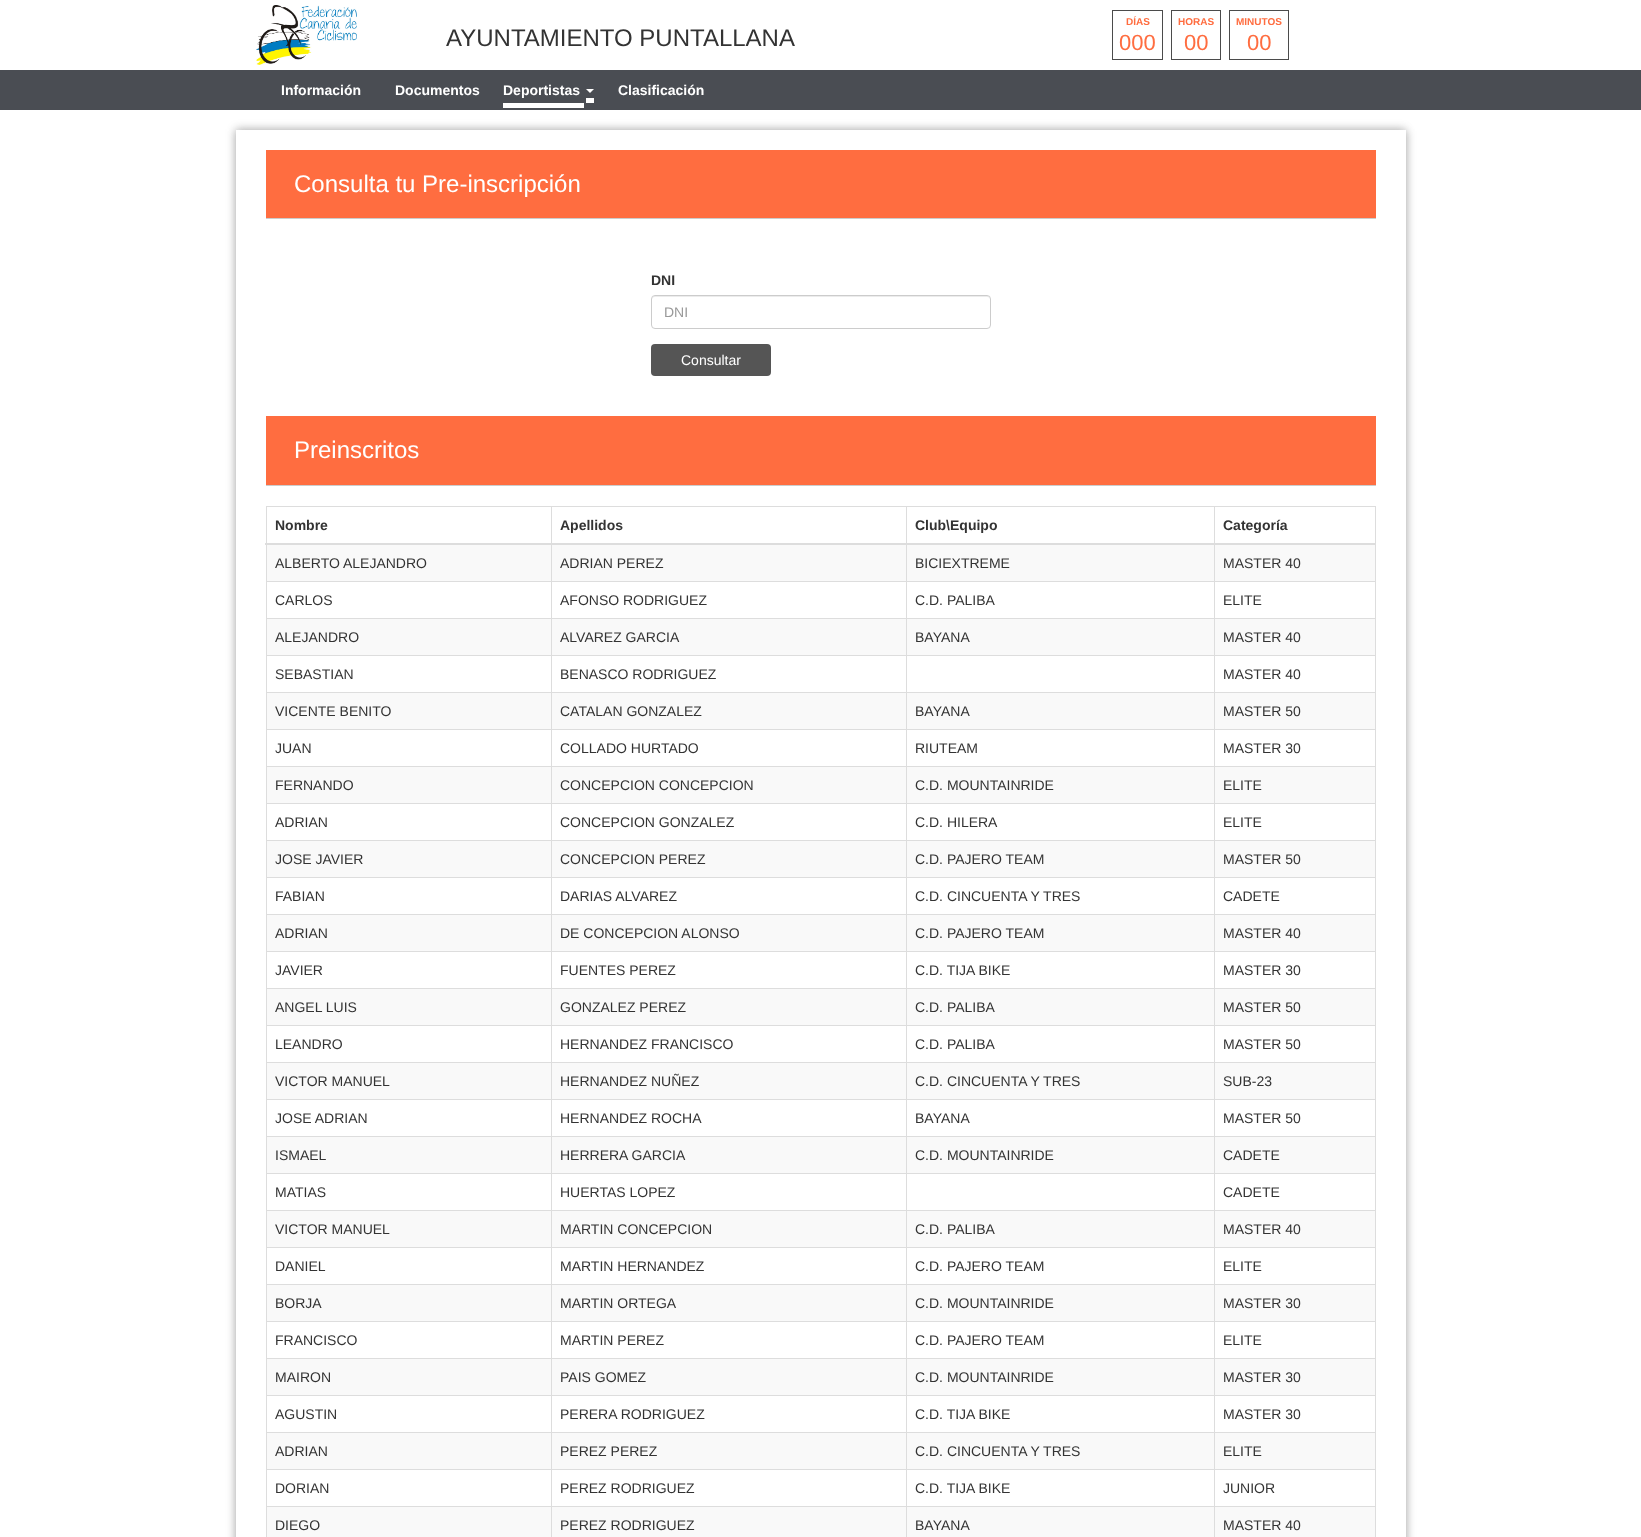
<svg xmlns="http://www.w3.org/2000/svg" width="1641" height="1537">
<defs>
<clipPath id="clip1"><path d="M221 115h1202v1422h-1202zm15 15h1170v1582h-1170z" clip-rule="evenodd"/></clipPath>
<clipPath id="clip2"><path d="M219 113h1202v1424h-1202zm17 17h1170v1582h-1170z" clip-rule="evenodd"/></clipPath>
</defs>
<rect width="100%" height="100%" fill="#fff"/>
<image x="256" y="5" width="101" height="60" href="media/1.png"/>
<text x="446" y="46" style="font-family:Liberation Sans;font-size:24px;fill:#333">AYUNTAMIENTO PUNTALLANA</text>
<rect x="1112.5" y="10.5" width="50" height="49" fill="none" stroke="#4b4b4b"/>
<text x="1126" y="25" style="font-family:Liberation Sans;font-size:10px;font-weight:bold;fill:#ff6d40">DÍAS</text>
<text x="1119" y="50" style="font-family:Liberation Sans;font-size:22px;fill:#ff6d40">000</text>
<rect x="1171.5" y="10.5" width="49" height="49" fill="none" stroke="#4b4b4b"/>
<text x="1178" y="25" style="font-family:Liberation Sans;font-size:10px;font-weight:bold;fill:#ff6d40">HORAS</text>
<text x="1184" y="50" style="font-family:Liberation Sans;font-size:22px;fill:#ff6d40">00</text>
<rect x="1229.5" y="10.5" width="59" height="49" fill="none" stroke="#4b4b4b"/>
<text x="1236" y="25" style="font-family:Liberation Sans;font-size:10px;font-weight:bold;fill:#ff6d40">MINUTOS</text>
<text x="1247" y="50" style="font-family:Liberation Sans;font-size:22px;fill:#ff6d40">00</text>
<rect y="70" width="1641" height="40" fill="#4a4d53"/>
<text x="281" y="95" style="font-family:Liberation Sans;font-size:14px;font-weight:bold;fill:#fff">Información</text>
<text x="395" y="95" style="font-family:Liberation Sans;font-size:14px;font-weight:bold;fill:#fff">Documentos</text>
<rect x="503" y="103" width="81" height="5" fill="#fff"/>
<rect x="586" y="98" width="8" height="5" fill="#fff"/>
<text x="503" y="95" style="font-family:Liberation Sans;font-size:14px;font-weight:bold;fill:#fff">Deportistas</text>
<path d="M586 89h8l-4 4z" fill="#fff"/>
<text x="618" y="95" style="font-family:Liberation Sans;font-size:14px;font-weight:bold;fill:#fff">Clasificación</text>
<g clip-path="url(#clip1)">
<rect x="237" y="131" width="1170" height="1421" fill="#00000033" filter="blur(5px)"/>
</g>
<g clip-path="url(#clip2)">
<rect x="235" y="129" width="1170" height="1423" fill="#00000033" filter="blur(5px)"/>
</g>
<rect x="266" y="150" width="1110" height="68" fill="#ff6d40"/>
<rect x="266" y="218" width="1110" height="1" fill="#ccc"/>
<text x="294" y="192" style="font-family:Liberation Sans;font-size:24px;fill:#fff">Consulta tu Pre-inscripción</text>
<text x="651" y="285" style="font-family:Liberation Sans;font-size:14px;font-weight:bold;fill:#333">DNI</text>
<path d="M655 297h332c2 0 3 1 3 3c0-2-1-4-3-4h-332c-2 0-3 2-3 4c0-2 1-3 3-3z" fill="#ececec"/>
<rect x="651.5" y="295.5" width="339" height="33" rx="3.5" fill="none" stroke="#ccc"/>
<text x="664" y="317" style="font-family:Liberation Sans;font-size:14px;fill:#999">DNI</text>
<rect x="651" y="344" width="120" height="32" rx="4" fill="#555"/>
<text x="681" y="365" style="font-family:Liberation Sans;font-size:14px;fill:#fff">Consultar</text>
<rect x="266" y="416" width="1110" height="69" fill="#ff6d40"/>
<rect x="266" y="485" width="1110" height="1" fill="#ccc"/>
<text x="294" y="458" style="font-family:Liberation Sans;font-size:24px;fill:#fff">Preinscritos</text>
<rect x="266" y="506" width="1110" height="1" fill="#ddd"/>
<rect x="1375" y="506" width="1" height="1031" fill="#ddd"/>
<rect x="266" y="506" width="1" height="1031" fill="#ddd"/>
<text x="275" y="530" style="font-family:Liberation Sans;font-size:14px;font-weight:bold;fill:#333">Nombre</text>
<text x="560" y="530" style="font-family:Liberation Sans;font-size:14px;font-weight:bold;fill:#333">Apellidos</text>
<text x="915" y="530" style="font-family:Liberation Sans;font-size:14px;font-weight:bold;fill:#333">Club\Equipo</text>
<rect x="267" y="545" width="1108" height="36" fill="#f9f9f9"/>
<rect x="1214" y="581" width="162" height="1" fill="#ddd"/>
<rect x="1214" y="618" width="162" height="1" fill="#ddd"/>
<rect x="267" y="619" width="1108" height="36" fill="#f9f9f9"/>
<rect x="1214" y="655" width="162" height="1" fill="#ddd"/>
<rect x="1214" y="692" width="162" height="1" fill="#ddd"/>
<rect x="267" y="693" width="1108" height="36" fill="#f9f9f9"/>
<rect x="1214" y="729" width="162" height="1" fill="#ddd"/>
<rect x="1214" y="766" width="162" height="1" fill="#ddd"/>
<rect x="267" y="767" width="1108" height="36" fill="#f9f9f9"/>
<rect x="1214" y="803" width="162" height="1" fill="#ddd"/>
<rect x="1214" y="840" width="162" height="1" fill="#ddd"/>
<rect x="267" y="841" width="1108" height="36" fill="#f9f9f9"/>
<rect x="1214" y="877" width="162" height="1" fill="#ddd"/>
<rect x="1214" y="914" width="162" height="1" fill="#ddd"/>
<rect x="267" y="915" width="1108" height="36" fill="#f9f9f9"/>
<rect x="1214" y="951" width="162" height="1" fill="#ddd"/>
<rect x="1214" y="988" width="162" height="1" fill="#ddd"/>
<rect x="267" y="989" width="1108" height="36" fill="#f9f9f9"/>
<rect x="1214" y="1025" width="162" height="1" fill="#ddd"/>
<rect x="1214" y="1062" width="162" height="1" fill="#ddd"/>
<rect x="267" y="1063" width="1108" height="36" fill="#f9f9f9"/>
<rect x="1214" y="1099" width="162" height="1" fill="#ddd"/>
<rect x="1214" y="1136" width="162" height="1" fill="#ddd"/>
<rect x="267" y="1137" width="1108" height="36" fill="#f9f9f9"/>
<rect x="1214" y="1173" width="162" height="1" fill="#ddd"/>
<rect x="1214" y="1210" width="162" height="1" fill="#ddd"/>
<rect x="267" y="1211" width="1108" height="36" fill="#f9f9f9"/>
<rect x="1214" y="1247" width="162" height="1" fill="#ddd"/>
<rect x="1214" y="1284" width="162" height="1" fill="#ddd"/>
<rect x="267" y="1285" width="1108" height="36" fill="#f9f9f9"/>
<rect x="1214" y="1321" width="162" height="1" fill="#ddd"/>
<rect x="1214" y="1358" width="162" height="1" fill="#ddd"/>
<rect x="267" y="1359" width="1108" height="36" fill="#f9f9f9"/>
<rect x="1214" y="1395" width="162" height="1" fill="#ddd"/>
<rect x="1214" y="1432" width="162" height="1" fill="#ddd"/>
<rect x="267" y="1433" width="1108" height="36" fill="#f9f9f9"/>
<rect x="1214" y="1469" width="162" height="1" fill="#ddd"/>
<rect x="1214" y="1506" width="162" height="1" fill="#ddd"/>
<rect x="267" y="1507" width="1108" height="30" fill="#f9f9f9"/>
<rect x="1214" y="1506" width="1" height="31" fill="#ddd"/>
<rect x="906" y="1506" width="309" height="1" fill="#ddd"/>
<rect x="1214" y="1469" width="1" height="38" fill="#ddd"/>
<rect x="906" y="1469" width="309" height="1" fill="#ddd"/>
<rect x="1214" y="1432" width="1" height="38" fill="#ddd"/>
<rect x="906" y="1432" width="309" height="1" fill="#ddd"/>
<rect x="1214" y="1395" width="1" height="38" fill="#ddd"/>
<rect x="906" y="1395" width="309" height="1" fill="#ddd"/>
<rect x="1214" y="1358" width="1" height="38" fill="#ddd"/>
<rect x="906" y="1358" width="309" height="1" fill="#ddd"/>
<rect x="1214" y="1321" width="1" height="38" fill="#ddd"/>
<rect x="906" y="1321" width="309" height="1" fill="#ddd"/>
<rect x="1214" y="1284" width="1" height="38" fill="#ddd"/>
<rect x="906" y="1284" width="309" height="1" fill="#ddd"/>
<rect x="1214" y="1247" width="1" height="38" fill="#ddd"/>
<rect x="906" y="1247" width="309" height="1" fill="#ddd"/>
<rect x="1214" y="1210" width="1" height="38" fill="#ddd"/>
<rect x="906" y="1210" width="309" height="1" fill="#ddd"/>
<rect x="1214" y="1173" width="1" height="38" fill="#ddd"/>
<rect x="906" y="1173" width="309" height="1" fill="#ddd"/>
<rect x="1214" y="1136" width="1" height="38" fill="#ddd"/>
<rect x="906" y="1136" width="309" height="1" fill="#ddd"/>
<rect x="1214" y="1099" width="1" height="38" fill="#ddd"/>
<rect x="906" y="1099" width="309" height="1" fill="#ddd"/>
<rect x="1214" y="1062" width="1" height="38" fill="#ddd"/>
<rect x="906" y="1062" width="309" height="1" fill="#ddd"/>
<rect x="1214" y="1025" width="1" height="38" fill="#ddd"/>
<rect x="906" y="1025" width="309" height="1" fill="#ddd"/>
<rect x="1214" y="988" width="1" height="38" fill="#ddd"/>
<rect x="906" y="988" width="309" height="1" fill="#ddd"/>
<rect x="1214" y="951" width="1" height="38" fill="#ddd"/>
<rect x="906" y="951" width="309" height="1" fill="#ddd"/>
<rect x="1214" y="914" width="1" height="38" fill="#ddd"/>
<rect x="906" y="914" width="309" height="1" fill="#ddd"/>
<rect x="1214" y="877" width="1" height="38" fill="#ddd"/>
<rect x="906" y="877" width="309" height="1" fill="#ddd"/>
<rect x="1214" y="840" width="1" height="38" fill="#ddd"/>
<rect x="906" y="840" width="309" height="1" fill="#ddd"/>
<rect x="1214" y="803" width="1" height="38" fill="#ddd"/>
<rect x="906" y="803" width="309" height="1" fill="#ddd"/>
<rect x="1214" y="766" width="1" height="38" fill="#ddd"/>
<rect x="906" y="766" width="309" height="1" fill="#ddd"/>
<rect x="1214" y="729" width="1" height="38" fill="#ddd"/>
<rect x="906" y="729" width="309" height="1" fill="#ddd"/>
<rect x="1214" y="692" width="1" height="38" fill="#ddd"/>
<rect x="906" y="692" width="309" height="1" fill="#ddd"/>
<rect x="1214" y="655" width="1" height="38" fill="#ddd"/>
<rect x="906" y="655" width="309" height="1" fill="#ddd"/>
<rect x="1214" y="618" width="1" height="38" fill="#ddd"/>
<rect x="906" y="618" width="309" height="1" fill="#ddd"/>
<rect x="1214" y="581" width="1" height="38" fill="#ddd"/>
<rect x="906" y="581" width="309" height="1" fill="#ddd"/>
<rect x="906" y="1506" width="1" height="31" fill="#ddd"/>
<rect x="551" y="1506" width="356" height="1" fill="#ddd"/>
<rect x="906" y="1469" width="1" height="38" fill="#ddd"/>
<rect x="551" y="1469" width="356" height="1" fill="#ddd"/>
<rect x="906" y="1432" width="1" height="38" fill="#ddd"/>
<rect x="551" y="1432" width="356" height="1" fill="#ddd"/>
<rect x="906" y="1395" width="1" height="38" fill="#ddd"/>
<rect x="551" y="1395" width="356" height="1" fill="#ddd"/>
<rect x="906" y="1358" width="1" height="38" fill="#ddd"/>
<rect x="551" y="1358" width="356" height="1" fill="#ddd"/>
<rect x="906" y="1321" width="1" height="38" fill="#ddd"/>
<rect x="551" y="1321" width="356" height="1" fill="#ddd"/>
<rect x="906" y="1284" width="1" height="38" fill="#ddd"/>
<rect x="551" y="1284" width="356" height="1" fill="#ddd"/>
<rect x="906" y="1247" width="1" height="38" fill="#ddd"/>
<rect x="551" y="1247" width="356" height="1" fill="#ddd"/>
<rect x="906" y="1210" width="1" height="38" fill="#ddd"/>
<rect x="551" y="1210" width="356" height="1" fill="#ddd"/>
<rect x="906" y="1173" width="1" height="38" fill="#ddd"/>
<rect x="551" y="1173" width="356" height="1" fill="#ddd"/>
<rect x="906" y="1136" width="1" height="38" fill="#ddd"/>
<rect x="551" y="1136" width="356" height="1" fill="#ddd"/>
<rect x="906" y="1099" width="1" height="38" fill="#ddd"/>
<rect x="551" y="1099" width="356" height="1" fill="#ddd"/>
<rect x="906" y="1062" width="1" height="38" fill="#ddd"/>
<rect x="551" y="1062" width="356" height="1" fill="#ddd"/>
<rect x="906" y="1025" width="1" height="38" fill="#ddd"/>
<rect x="551" y="1025" width="356" height="1" fill="#ddd"/>
<rect x="906" y="988" width="1" height="38" fill="#ddd"/>
<rect x="551" y="988" width="356" height="1" fill="#ddd"/>
<rect x="906" y="951" width="1" height="38" fill="#ddd"/>
<rect x="551" y="951" width="356" height="1" fill="#ddd"/>
<rect x="906" y="914" width="1" height="38" fill="#ddd"/>
<rect x="551" y="914" width="356" height="1" fill="#ddd"/>
<rect x="906" y="877" width="1" height="38" fill="#ddd"/>
<rect x="551" y="877" width="356" height="1" fill="#ddd"/>
<rect x="906" y="840" width="1" height="38" fill="#ddd"/>
<rect x="551" y="840" width="356" height="1" fill="#ddd"/>
<rect x="906" y="803" width="1" height="38" fill="#ddd"/>
<rect x="551" y="803" width="356" height="1" fill="#ddd"/>
<rect x="906" y="766" width="1" height="38" fill="#ddd"/>
<rect x="551" y="766" width="356" height="1" fill="#ddd"/>
<rect x="906" y="729" width="1" height="38" fill="#ddd"/>
<rect x="551" y="729" width="356" height="1" fill="#ddd"/>
<rect x="906" y="692" width="1" height="38" fill="#ddd"/>
<rect x="551" y="692" width="356" height="1" fill="#ddd"/>
<rect x="906" y="655" width="1" height="38" fill="#ddd"/>
<rect x="551" y="655" width="356" height="1" fill="#ddd"/>
<rect x="906" y="618" width="1" height="38" fill="#ddd"/>
<rect x="551" y="618" width="356" height="1" fill="#ddd"/>
<rect x="906" y="581" width="1" height="38" fill="#ddd"/>
<rect x="551" y="581" width="356" height="1" fill="#ddd"/>
<rect x="551" y="1506" width="1" height="31" fill="#ddd"/>
<rect x="266" y="1506" width="286" height="1" fill="#ddd"/>
<rect x="551" y="1469" width="1" height="38" fill="#ddd"/>
<rect x="266" y="1469" width="286" height="1" fill="#ddd"/>
<rect x="551" y="1432" width="1" height="38" fill="#ddd"/>
<rect x="266" y="1432" width="286" height="1" fill="#ddd"/>
<rect x="551" y="1395" width="1" height="38" fill="#ddd"/>
<rect x="266" y="1395" width="286" height="1" fill="#ddd"/>
<rect x="551" y="1358" width="1" height="38" fill="#ddd"/>
<rect x="266" y="1358" width="286" height="1" fill="#ddd"/>
<rect x="551" y="1321" width="1" height="38" fill="#ddd"/>
<rect x="266" y="1321" width="286" height="1" fill="#ddd"/>
<rect x="551" y="1284" width="1" height="38" fill="#ddd"/>
<rect x="266" y="1284" width="286" height="1" fill="#ddd"/>
<rect x="551" y="1247" width="1" height="38" fill="#ddd"/>
<rect x="266" y="1247" width="286" height="1" fill="#ddd"/>
<rect x="551" y="1210" width="1" height="38" fill="#ddd"/>
<rect x="266" y="1210" width="286" height="1" fill="#ddd"/>
<rect x="551" y="1173" width="1" height="38" fill="#ddd"/>
<rect x="266" y="1173" width="286" height="1" fill="#ddd"/>
<rect x="551" y="1136" width="1" height="38" fill="#ddd"/>
<rect x="266" y="1136" width="286" height="1" fill="#ddd"/>
<rect x="551" y="1099" width="1" height="38" fill="#ddd"/>
<rect x="266" y="1099" width="286" height="1" fill="#ddd"/>
<rect x="551" y="1062" width="1" height="38" fill="#ddd"/>
<rect x="266" y="1062" width="286" height="1" fill="#ddd"/>
<rect x="551" y="1025" width="1" height="38" fill="#ddd"/>
<rect x="266" y="1025" width="286" height="1" fill="#ddd"/>
<rect x="551" y="988" width="1" height="38" fill="#ddd"/>
<rect x="266" y="988" width="286" height="1" fill="#ddd"/>
<rect x="551" y="951" width="1" height="38" fill="#ddd"/>
<rect x="266" y="951" width="286" height="1" fill="#ddd"/>
<rect x="551" y="914" width="1" height="38" fill="#ddd"/>
<rect x="266" y="914" width="286" height="1" fill="#ddd"/>
<rect x="551" y="877" width="1" height="38" fill="#ddd"/>
<rect x="266" y="877" width="286" height="1" fill="#ddd"/>
<rect x="551" y="840" width="1" height="38" fill="#ddd"/>
<rect x="266" y="840" width="286" height="1" fill="#ddd"/>
<rect x="551" y="803" width="1" height="38" fill="#ddd"/>
<rect x="266" y="803" width="286" height="1" fill="#ddd"/>
<rect x="551" y="766" width="1" height="38" fill="#ddd"/>
<rect x="266" y="766" width="286" height="1" fill="#ddd"/>
<rect x="551" y="729" width="1" height="38" fill="#ddd"/>
<rect x="266" y="729" width="286" height="1" fill="#ddd"/>
<rect x="551" y="692" width="1" height="38" fill="#ddd"/>
<rect x="266" y="692" width="286" height="1" fill="#ddd"/>
<rect x="551" y="655" width="1" height="38" fill="#ddd"/>
<rect x="266" y="655" width="286" height="1" fill="#ddd"/>
<rect x="551" y="618" width="1" height="38" fill="#ddd"/>
<rect x="266" y="618" width="286" height="1" fill="#ddd"/>
<rect x="551" y="581" width="1" height="38" fill="#ddd"/>
<rect x="266" y="581" width="286" height="1" fill="#ddd"/>
<rect x="551" y="506" width="1" height="76" fill="#ddd"/>
<rect x="906" y="506" width="1" height="76" fill="#ddd"/>
<rect x="1214" y="506" width="1" height="76" fill="#ddd"/>
<rect x="265" y="543" width="1111" height="2" fill="#ddd"/>
<text x="1223" y="530" style="font-family:Liberation Sans;font-size:14px;font-weight:bold;fill:#333">Categoría</text>
<text x="275" y="568" style="font-family:Liberation Sans;font-size:14px;fill:#333">ALBERTO ALEJANDRO</text>
<text x="560" y="568" style="font-family:Liberation Sans;font-size:14px;fill:#333">ADRIAN PEREZ</text>
<text x="915" y="568" style="font-family:Liberation Sans;font-size:14px;fill:#333">BICIEXTREME</text>
<text x="1223" y="568" style="font-family:Liberation Sans;font-size:14px;fill:#333">MASTER 40</text>
<text x="275" y="605" style="font-family:Liberation Sans;font-size:14px;fill:#333">CARLOS</text>
<text x="560" y="605" style="font-family:Liberation Sans;font-size:14px;fill:#333">AFONSO RODRIGUEZ</text>
<text x="915" y="605" style="font-family:Liberation Sans;font-size:14px;fill:#333">C.D. PALIBA</text>
<text x="1223" y="605" style="font-family:Liberation Sans;font-size:14px;fill:#333">ELITE</text>
<text x="275" y="642" style="font-family:Liberation Sans;font-size:14px;fill:#333">ALEJANDRO</text>
<text x="560" y="642" style="font-family:Liberation Sans;font-size:14px;fill:#333">ALVAREZ GARCIA</text>
<text x="915" y="642" style="font-family:Liberation Sans;font-size:14px;fill:#333">BAYANA</text>
<text x="1223" y="642" style="font-family:Liberation Sans;font-size:14px;fill:#333">MASTER 40</text>
<text x="275" y="679" style="font-family:Liberation Sans;font-size:14px;fill:#333">SEBASTIAN</text>
<text x="560" y="679" style="font-family:Liberation Sans;font-size:14px;fill:#333">BENASCO RODRIGUEZ</text>
<text x="1223" y="679" style="font-family:Liberation Sans;font-size:14px;fill:#333">MASTER 40</text>
<text x="275" y="716" style="font-family:Liberation Sans;font-size:14px;fill:#333">VICENTE BENITO</text>
<text x="560" y="716" style="font-family:Liberation Sans;font-size:14px;fill:#333">CATALAN GONZALEZ</text>
<text x="915" y="716" style="font-family:Liberation Sans;font-size:14px;fill:#333">BAYANA</text>
<text x="1223" y="716" style="font-family:Liberation Sans;font-size:14px;fill:#333">MASTER 50</text>
<text x="275" y="753" style="font-family:Liberation Sans;font-size:14px;fill:#333">JUAN</text>
<text x="560" y="753" style="font-family:Liberation Sans;font-size:14px;fill:#333">COLLADO HURTADO</text>
<text x="915" y="753" style="font-family:Liberation Sans;font-size:14px;fill:#333">RIUTEAM</text>
<text x="1223" y="753" style="font-family:Liberation Sans;font-size:14px;fill:#333">MASTER 30</text>
<text x="275" y="790" style="font-family:Liberation Sans;font-size:14px;fill:#333">FERNANDO</text>
<text x="560" y="790" style="font-family:Liberation Sans;font-size:14px;fill:#333">CONCEPCION CONCEPCION</text>
<text x="915" y="790" style="font-family:Liberation Sans;font-size:14px;fill:#333">C.D. MOUNTAINRIDE</text>
<text x="1223" y="790" style="font-family:Liberation Sans;font-size:14px;fill:#333">ELITE</text>
<text x="275" y="827" style="font-family:Liberation Sans;font-size:14px;fill:#333">ADRIAN</text>
<text x="560" y="827" style="font-family:Liberation Sans;font-size:14px;fill:#333">CONCEPCION GONZALEZ</text>
<text x="915" y="827" style="font-family:Liberation Sans;font-size:14px;fill:#333">C.D. HILERA</text>
<text x="1223" y="827" style="font-family:Liberation Sans;font-size:14px;fill:#333">ELITE</text>
<text x="275" y="864" style="font-family:Liberation Sans;font-size:14px;fill:#333">JOSE JAVIER</text>
<text x="560" y="864" style="font-family:Liberation Sans;font-size:14px;fill:#333">CONCEPCION PEREZ</text>
<text x="915" y="864" style="font-family:Liberation Sans;font-size:14px;fill:#333">C.D. PAJERO TEAM</text>
<text x="1223" y="864" style="font-family:Liberation Sans;font-size:14px;fill:#333">MASTER 50</text>
<text x="275" y="901" style="font-family:Liberation Sans;font-size:14px;fill:#333">FABIAN</text>
<text x="560" y="901" style="font-family:Liberation Sans;font-size:14px;fill:#333">DARIAS ALVAREZ</text>
<text x="915" y="901" style="font-family:Liberation Sans;font-size:14px;fill:#333">C.D. CINCUENTA Y TRES</text>
<text x="1223" y="901" style="font-family:Liberation Sans;font-size:14px;fill:#333">CADETE</text>
<text x="275" y="938" style="font-family:Liberation Sans;font-size:14px;fill:#333">ADRIAN</text>
<text x="560" y="938" style="font-family:Liberation Sans;font-size:14px;fill:#333">DE CONCEPCION ALONSO</text>
<text x="915" y="938" style="font-family:Liberation Sans;font-size:14px;fill:#333">C.D. PAJERO TEAM</text>
<text x="1223" y="938" style="font-family:Liberation Sans;font-size:14px;fill:#333">MASTER 40</text>
<text x="275" y="975" style="font-family:Liberation Sans;font-size:14px;fill:#333">JAVIER</text>
<text x="560" y="975" style="font-family:Liberation Sans;font-size:14px;fill:#333">FUENTES PEREZ</text>
<text x="915" y="975" style="font-family:Liberation Sans;font-size:14px;fill:#333">C.D. TIJA BIKE</text>
<text x="1223" y="975" style="font-family:Liberation Sans;font-size:14px;fill:#333">MASTER 30</text>
<text x="275" y="1012" style="font-family:Liberation Sans;font-size:14px;fill:#333">ANGEL LUIS</text>
<text x="560" y="1012" style="font-family:Liberation Sans;font-size:14px;fill:#333">GONZALEZ PEREZ</text>
<text x="915" y="1012" style="font-family:Liberation Sans;font-size:14px;fill:#333">C.D. PALIBA</text>
<text x="1223" y="1012" style="font-family:Liberation Sans;font-size:14px;fill:#333">MASTER 50</text>
<text x="275" y="1049" style="font-family:Liberation Sans;font-size:14px;fill:#333">LEANDRO</text>
<text x="560" y="1049" style="font-family:Liberation Sans;font-size:14px;fill:#333">HERNANDEZ FRANCISCO</text>
<text x="915" y="1049" style="font-family:Liberation Sans;font-size:14px;fill:#333">C.D. PALIBA</text>
<text x="1223" y="1049" style="font-family:Liberation Sans;font-size:14px;fill:#333">MASTER 50</text>
<text x="275" y="1086" style="font-family:Liberation Sans;font-size:14px;fill:#333">VICTOR MANUEL</text>
<text x="560" y="1086" style="font-family:Liberation Sans;font-size:14px;fill:#333">HERNANDEZ NUÑEZ</text>
<text x="915" y="1086" style="font-family:Liberation Sans;font-size:14px;fill:#333">C.D. CINCUENTA Y TRES</text>
<text x="1223" y="1086" style="font-family:Liberation Sans;font-size:14px;fill:#333">SUB-23</text>
<text x="275" y="1123" style="font-family:Liberation Sans;font-size:14px;fill:#333">JOSE ADRIAN</text>
<text x="560" y="1123" style="font-family:Liberation Sans;font-size:14px;fill:#333">HERNANDEZ ROCHA</text>
<text x="915" y="1123" style="font-family:Liberation Sans;font-size:14px;fill:#333">BAYANA</text>
<text x="1223" y="1123" style="font-family:Liberation Sans;font-size:14px;fill:#333">MASTER 50</text>
<text x="275" y="1160" style="font-family:Liberation Sans;font-size:14px;fill:#333">ISMAEL</text>
<text x="560" y="1160" style="font-family:Liberation Sans;font-size:14px;fill:#333">HERRERA GARCIA</text>
<text x="915" y="1160" style="font-family:Liberation Sans;font-size:14px;fill:#333">C.D. MOUNTAINRIDE</text>
<text x="1223" y="1160" style="font-family:Liberation Sans;font-size:14px;fill:#333">CADETE</text>
<text x="275" y="1197" style="font-family:Liberation Sans;font-size:14px;fill:#333">MATIAS</text>
<text x="560" y="1197" style="font-family:Liberation Sans;font-size:14px;fill:#333">HUERTAS LOPEZ</text>
<text x="1223" y="1197" style="font-family:Liberation Sans;font-size:14px;fill:#333">CADETE</text>
<text x="275" y="1234" style="font-family:Liberation Sans;font-size:14px;fill:#333">VICTOR MANUEL</text>
<text x="560" y="1234" style="font-family:Liberation Sans;font-size:14px;fill:#333">MARTIN CONCEPCION</text>
<text x="915" y="1234" style="font-family:Liberation Sans;font-size:14px;fill:#333">C.D. PALIBA</text>
<text x="1223" y="1234" style="font-family:Liberation Sans;font-size:14px;fill:#333">MASTER 40</text>
<text x="275" y="1271" style="font-family:Liberation Sans;font-size:14px;fill:#333">DANIEL</text>
<text x="560" y="1271" style="font-family:Liberation Sans;font-size:14px;fill:#333">MARTIN HERNANDEZ</text>
<text x="915" y="1271" style="font-family:Liberation Sans;font-size:14px;fill:#333">C.D. PAJERO TEAM</text>
<text x="1223" y="1271" style="font-family:Liberation Sans;font-size:14px;fill:#333">ELITE</text>
<text x="275" y="1308" style="font-family:Liberation Sans;font-size:14px;fill:#333">BORJA</text>
<text x="560" y="1308" style="font-family:Liberation Sans;font-size:14px;fill:#333">MARTIN ORTEGA</text>
<text x="915" y="1308" style="font-family:Liberation Sans;font-size:14px;fill:#333">C.D. MOUNTAINRIDE</text>
<text x="1223" y="1308" style="font-family:Liberation Sans;font-size:14px;fill:#333">MASTER 30</text>
<text x="275" y="1345" style="font-family:Liberation Sans;font-size:14px;fill:#333">FRANCISCO</text>
<text x="560" y="1345" style="font-family:Liberation Sans;font-size:14px;fill:#333">MARTIN PEREZ</text>
<text x="915" y="1345" style="font-family:Liberation Sans;font-size:14px;fill:#333">C.D. PAJERO TEAM</text>
<text x="1223" y="1345" style="font-family:Liberation Sans;font-size:14px;fill:#333">ELITE</text>
<text x="275" y="1382" style="font-family:Liberation Sans;font-size:14px;fill:#333">MAIRON</text>
<text x="560" y="1382" style="font-family:Liberation Sans;font-size:14px;fill:#333">PAIS GOMEZ</text>
<text x="915" y="1382" style="font-family:Liberation Sans;font-size:14px;fill:#333">C.D. MOUNTAINRIDE</text>
<text x="1223" y="1382" style="font-family:Liberation Sans;font-size:14px;fill:#333">MASTER 30</text>
<text x="275" y="1419" style="font-family:Liberation Sans;font-size:14px;fill:#333">AGUSTIN</text>
<text x="560" y="1419" style="font-family:Liberation Sans;font-size:14px;fill:#333">PERERA RODRIGUEZ</text>
<text x="915" y="1419" style="font-family:Liberation Sans;font-size:14px;fill:#333">C.D. TIJA BIKE</text>
<text x="1223" y="1419" style="font-family:Liberation Sans;font-size:14px;fill:#333">MASTER 30</text>
<text x="275" y="1456" style="font-family:Liberation Sans;font-size:14px;fill:#333">ADRIAN</text>
<text x="560" y="1456" style="font-family:Liberation Sans;font-size:14px;fill:#333">PEREZ PEREZ</text>
<text x="915" y="1456" style="font-family:Liberation Sans;font-size:14px;fill:#333">C.D. CINCUENTA Y TRES</text>
<text x="1223" y="1456" style="font-family:Liberation Sans;font-size:14px;fill:#333">ELITE</text>
<text x="275" y="1493" style="font-family:Liberation Sans;font-size:14px;fill:#333">DORIAN</text>
<text x="560" y="1493" style="font-family:Liberation Sans;font-size:14px;fill:#333">PEREZ RODRIGUEZ</text>
<text x="915" y="1493" style="font-family:Liberation Sans;font-size:14px;fill:#333">C.D. TIJA BIKE</text>
<text x="1223" y="1493" style="font-family:Liberation Sans;font-size:14px;fill:#333">JUNIOR</text>
<text x="275" y="1530" style="font-family:Liberation Sans;font-size:14px;fill:#333">DIEGO</text>
<text x="560" y="1530" style="font-family:Liberation Sans;font-size:14px;fill:#333">PEREZ RODRIGUEZ</text>
<text x="915" y="1530" style="font-family:Liberation Sans;font-size:14px;fill:#333">BAYANA</text>
<text x="1223" y="1530" style="font-family:Liberation Sans;font-size:14px;fill:#333">MASTER 40</text>
</svg>
